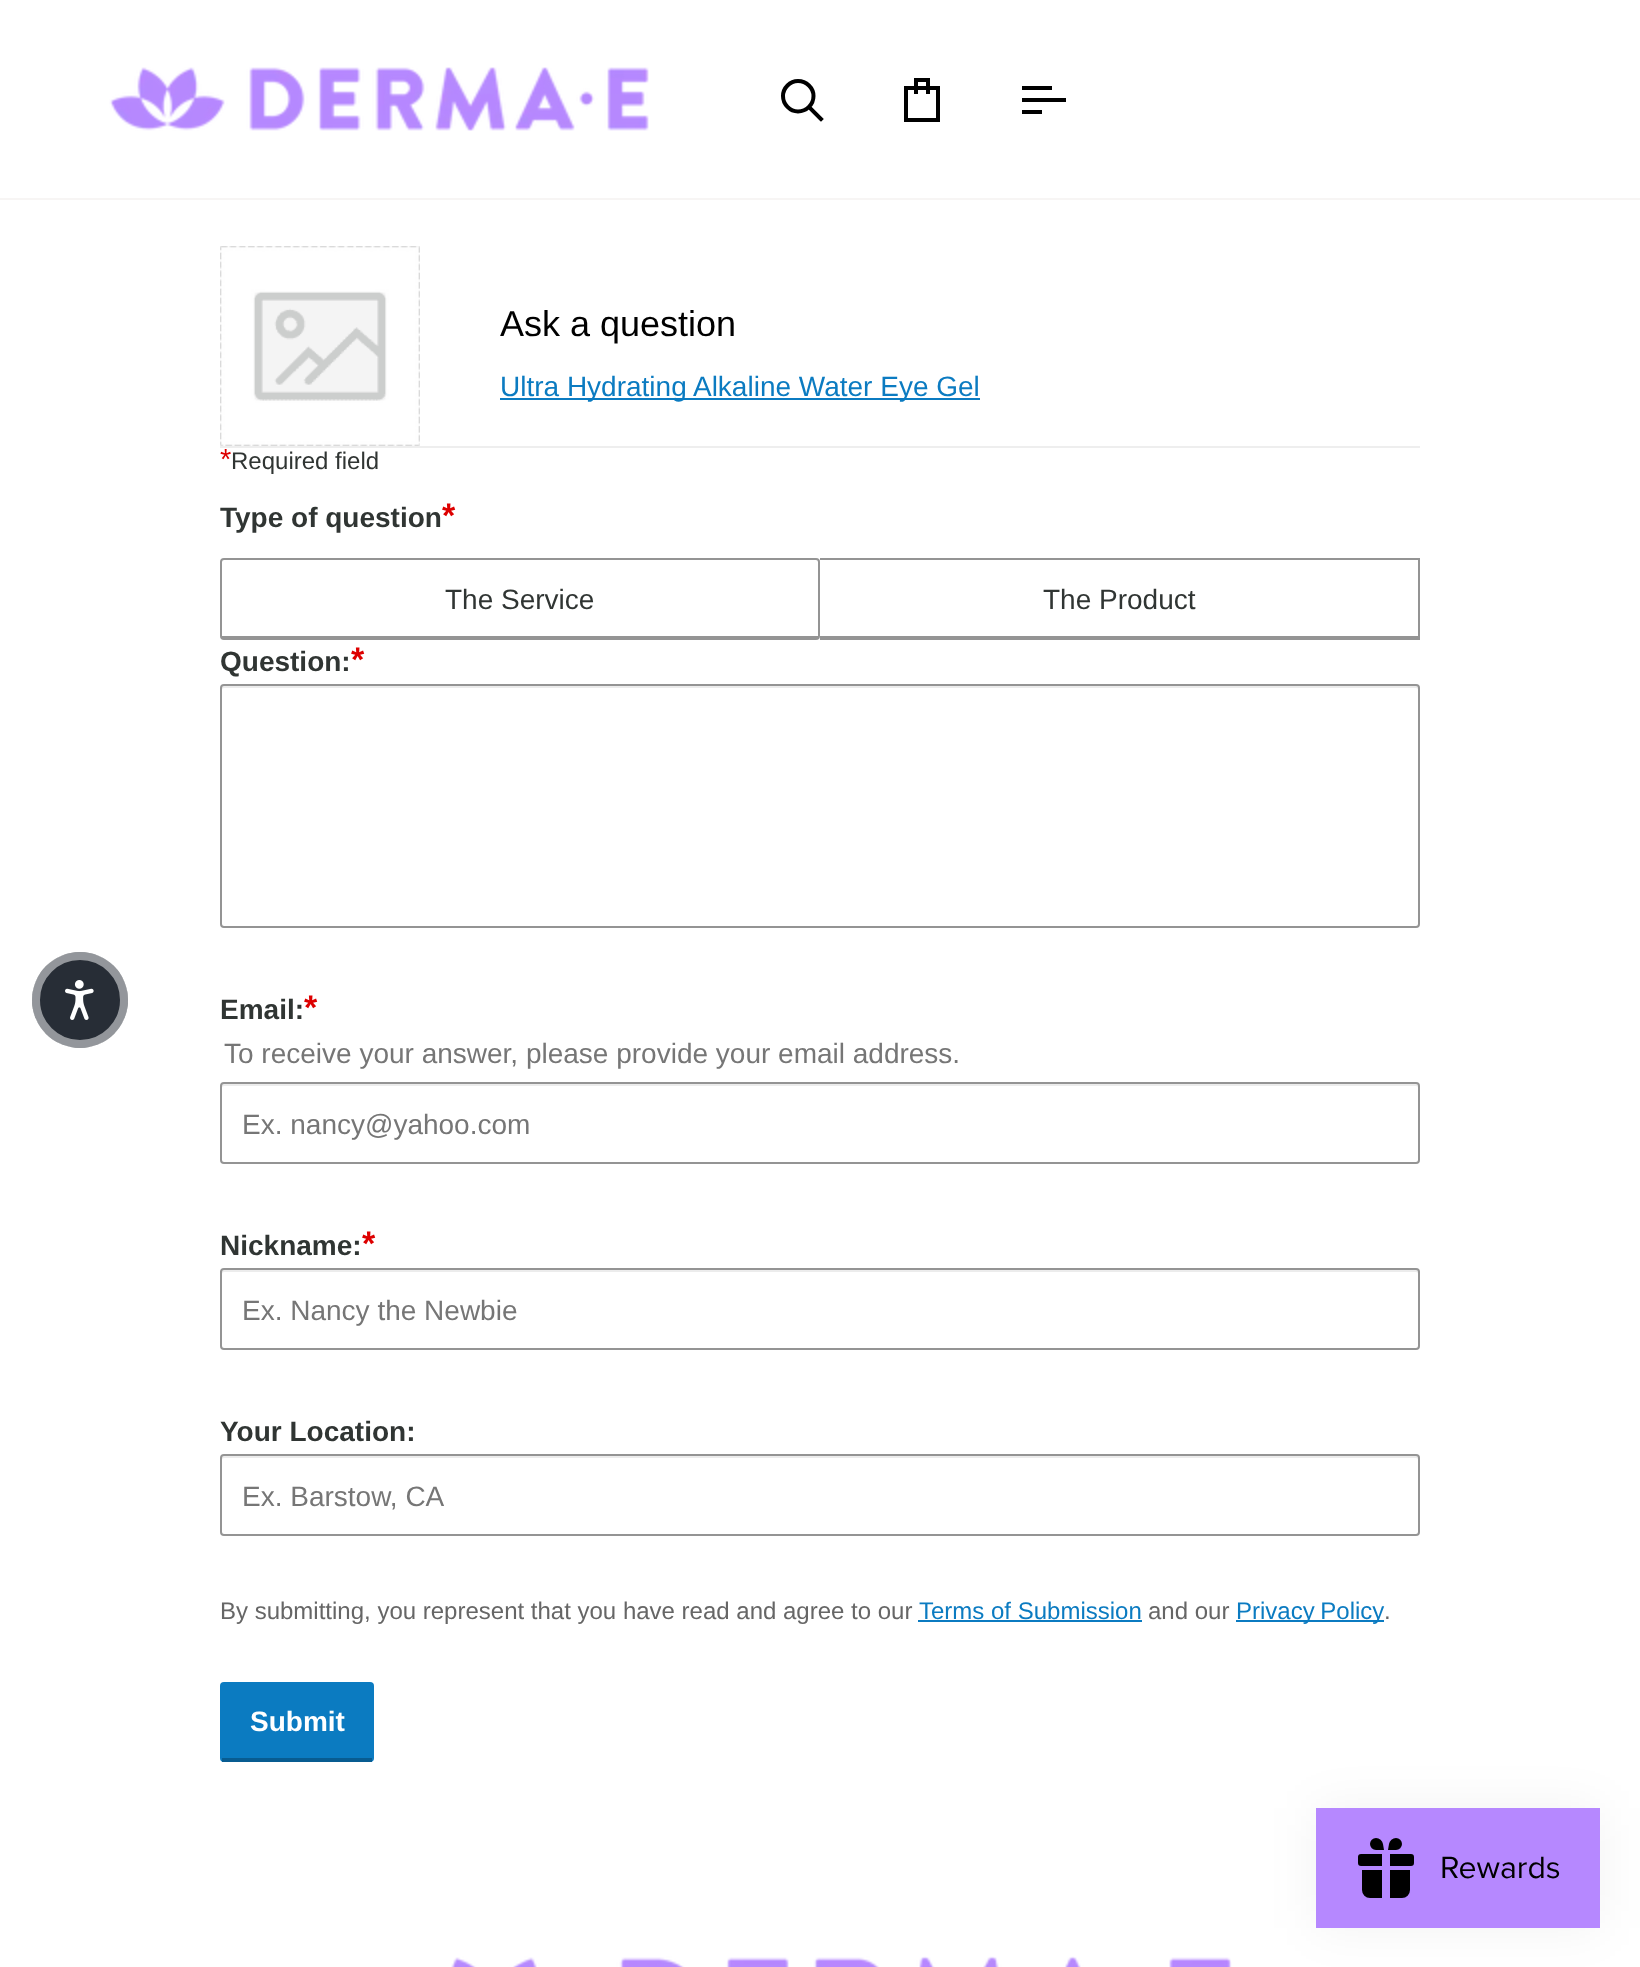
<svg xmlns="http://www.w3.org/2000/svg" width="1640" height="1967">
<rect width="100%" height="100%" fill="#fff"/>
<rect y="198" width="1640" height="2" fill="#f7f5f4"/>
<image x="109" y="67" width="540" height="64" href="media/1.png"/>
<path d="M798 111.5c8.5 0 15.5-7 15.5-15.5c0-8-7-15-15.5-15c-8 0-15 7-15 15c0 8.5 7 15.5 15 15.5zm23 7.5l-11.5-11.5" fill="none" stroke="#000" stroke-width="4" stroke-linecap="square"/>
<path d="M906 88h32v32h-32zm10 6v-14h12v14" fill="none" stroke="#000" stroke-width="4"/>
<path d="M1050 88h-26m40 12h-40m16 12h-16" fill="none" stroke="#000" stroke-width="4" stroke-linecap="square"/>
<circle cx="80" cy="1000" r="48" fill="#272d36"/>
<circle cx="80" cy="1000" r="44" fill="none" stroke="#ffffff80" stroke-width="8"/>
<image x="65" y="980" width="29" height="40" href="media/2.png"/>
<rect x="220" y="446" width="1200" height="2" fill="#eee"/>
<image x="220" y="246" width="200" height="200" href="media/3.png"/>
<text x="500" y="336" style="font-family:Liberation Sans;font-size:36px;fill:#000">Ask a question</text>
<rect x="500" y="398" width="480" height="2" fill="#0b7bc1"/>
<text x="500" y="396" style="font-family:Liberation Sans;font-size:28px;fill:#0b7bc1">Ultra Hydrating Alkaline Water Eye Gel</text>
<text x="220" y="469" style="font-family:Liberation Sans;font-size:29px;fill:#d00">*</text>
<text x="231" y="469" style="font-family:Liberation Sans;font-size:24px;fill:#303533">Required field</text>
<text x="220" y="527" style="font-family:Liberation Sans;font-size:28px;font-weight:bold;fill:#303533">Type of question</text>
<text x="442" y="527" style="font-family:Liberation Sans;font-size:34px;font-weight:bold;fill:#d00">*</text>
<rect x="221" y="559" width="598" height="80" rx="3" fill="none" stroke="#949494" stroke-width="2"/>
<rect x="222" y="636" width="596" height="2" fill="#949494"/>
<text x="445" y="609" style="font-family:Liberation Sans;font-size:28px;fill:#303533">The Service</text>
<rect x="820" y="558" width="600" height="2" fill="#949494"/>
<rect x="1418" y="558" width="2" height="82" fill="#949494"/>
<rect x="820" y="636" width="600" height="4" fill="#949494"/>
<text x="1043" y="609" style="font-family:Liberation Sans;font-size:28px;fill:#303533">The Product</text>
<text x="220" y="671" style="font-family:Liberation Sans;font-size:28px;font-weight:bold;fill:#303533">Question:</text>
<text x="351" y="671" style="font-family:Liberation Sans;font-size:34px;font-weight:bold;fill:#d00">*</text>
<path d="M224 688h1192c1 0 2 1 2 2c0-2 0-4-2-4h-1192l-2 1v3c0-1 1-2 2-2z" fill="#ececec"/>
<rect x="221" y="685" width="1198" height="242" rx="3" fill="none" stroke="#949494" stroke-width="2"/>
<text x="220" y="1019" style="font-family:Liberation Sans;font-size:28px;font-weight:bold;fill:#303533">Email:</text>
<text x="304" y="1019" style="font-family:Liberation Sans;font-size:34px;font-weight:bold;fill:#d00">*</text>
<text x="224" y="1063" style="font-family:Liberation Sans;font-size:28px;fill:#767676">To receive your answer, please provide your email address.</text>
<path d="M224 1086h1192c1 0 2 1 2 2c0-2 0-4-2-4h-1192l-2 1v3c0-1 1-2 2-2z" fill="#ececec"/>
<rect x="221" y="1083" width="1198" height="80" rx="3" fill="none" stroke="#949494" stroke-width="2"/>
<text x="242" y="1134" style="font-family:Liberation Sans;font-size:28px;fill:#767676">Ex. nancy@yahoo.com</text>
<text x="220" y="1255" style="font-family:Liberation Sans;font-size:28px;font-weight:bold;fill:#303533">Nickname:</text>
<text x="362" y="1255" style="font-family:Liberation Sans;font-size:34px;font-weight:bold;fill:#d00">*</text>
<path d="M224 1272h1192c1 0 2 1 2 2c0-2 0-4-2-4h-1192l-2 1v3c0-1 1-2 2-2z" fill="#ececec"/>
<rect x="221" y="1269" width="1198" height="80" rx="3" fill="none" stroke="#949494" stroke-width="2"/>
<text x="242" y="1320" style="font-family:Liberation Sans;font-size:28px;fill:#767676">Ex. Nancy the Newbie</text>
<text x="220" y="1441" style="font-family:Liberation Sans;font-size:28px;font-weight:bold;fill:#303533">Your Location:</text>
<path d="M224 1458h1192c1 0 2 1 2 2c0-2 0-4-2-4h-1192l-2 1v3c0-1 1-2 2-2z" fill="#ececec"/>
<rect x="221" y="1455" width="1198" height="80" rx="3" fill="none" stroke="#949494" stroke-width="2"/>
<text x="242" y="1506" style="font-family:Liberation Sans;font-size:28px;fill:#767676">Ex. Barstow, CA</text>
<text x="220" y="1619" style="font-family:Liberation Sans;font-size:24px;fill:#666">By submitting, you represent that you have read and agree to our</text>
<text x="919" y="1619" style="font-family:Liberation Sans;font-size:24px;fill:#0b7bc1">Terms of Submission</text>
<rect x="918" y="1620" width="224" height="2" fill="#0b7bc1"/>
<text x="1148" y="1619" style="font-family:Liberation Sans;font-size:24px;fill:#666">and our</text>
<rect x="1236" y="1620" width="148" height="2" fill="#0b7bc1"/>
<text x="1236" y="1619" word-spacing="-1" style="font-family:Liberation Sans;font-size:24px;fill:#0b7bc1">Privacy Policy</text>
<text x="1384" y="1619" style="font-family:Liberation Sans;font-size:24px;fill:#666">.</text>
<rect x="220" y="1682" width="154" height="80" rx="4" fill="#0b7bc1"/>
<rect x="222" y="1758" width="150" height="4" fill="#085c91"/>
<text x="250" y="1731" style="font-family:Liberation Sans;font-size:28px;font-weight:bold;fill:#fff">Submit</text>
<image x="451" y="1956" width="781" height="11" href="media/4.png"/>
<rect x="1316" y="1808" width="284" height="120" fill="#0000000d" filter="blur(25px)"/>
<image x="1316" y="1808" width="284" height="120" href="media/5.png"/>
</svg>
